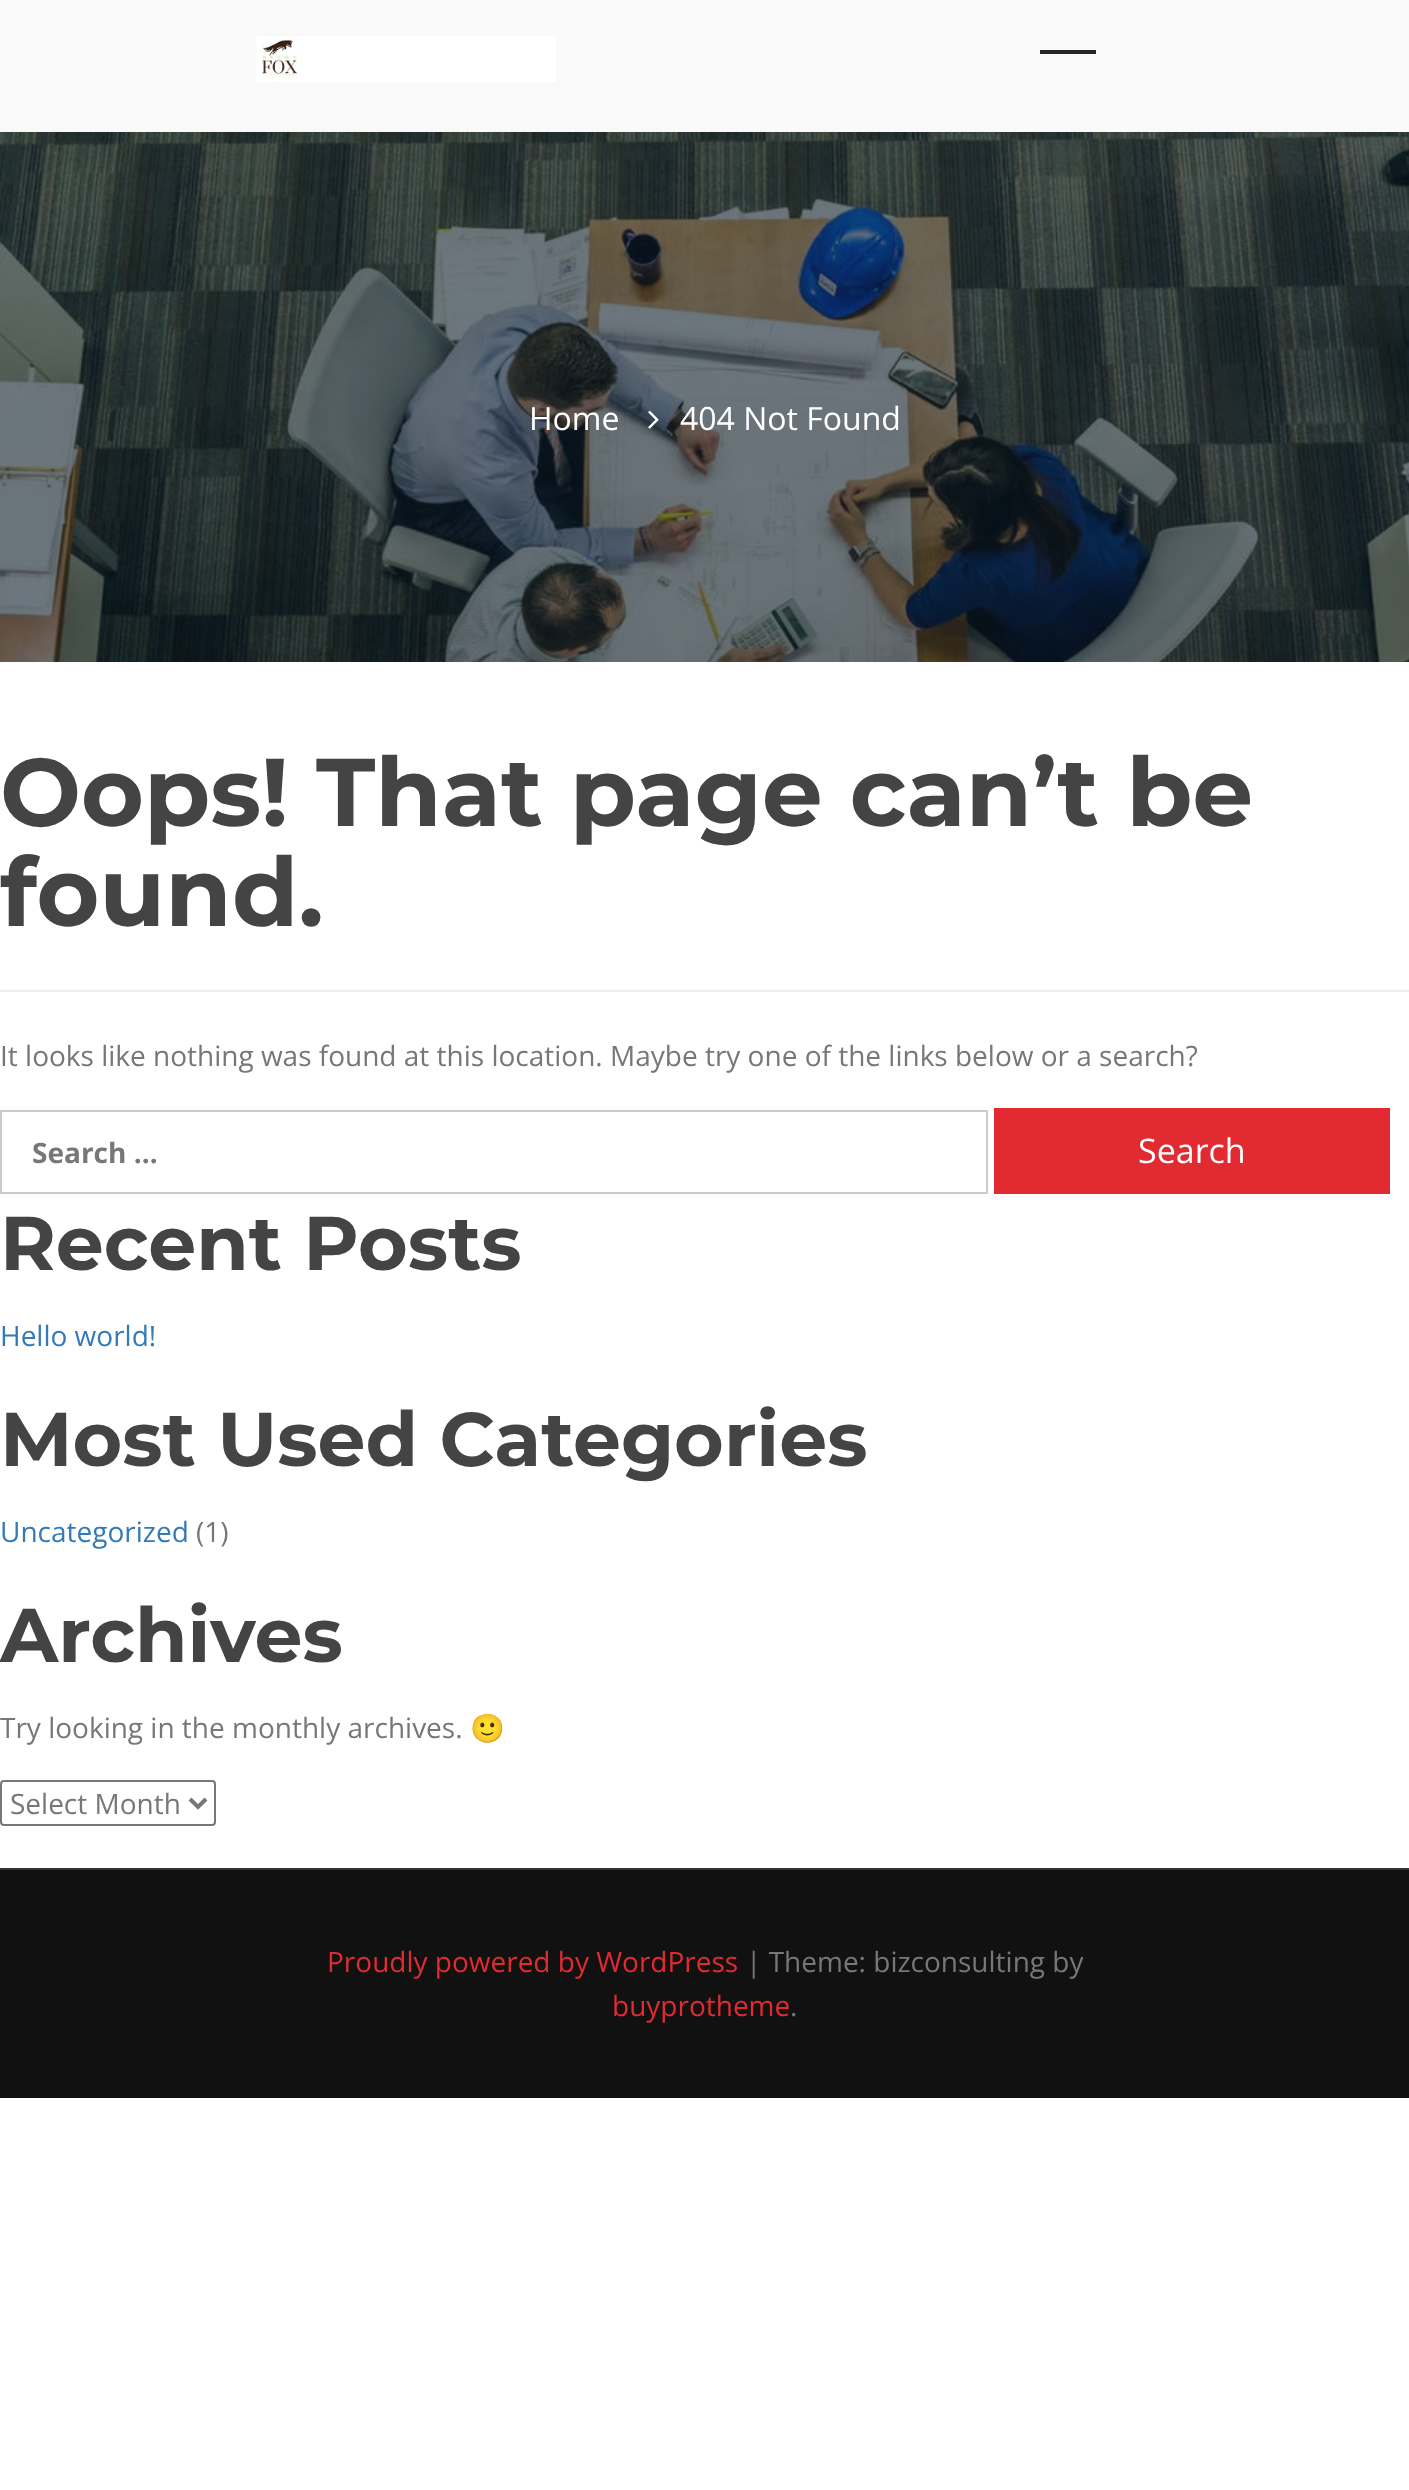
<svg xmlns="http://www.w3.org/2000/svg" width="1409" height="2490">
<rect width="100%" height="100%" fill="#fff"/>
<rect width="1409" height="132" fill="#f9f9f9"/>
<image x="256" y="36" width="300" height="46" href="media/1.png"/>
<rect x="1040" y="50" width="56" height="4" fill="#252525"/>
<image x="0" y="132" width="1409" height="530" href="media/2.png"/>
<text x="529" y="430" style="font-family:Open Sans;font-size:32px;fill:#fff">Home</text>
<image x="648" y="410" width="11" height="19" href="media/3.png"/>
<text x="680" y="430" style="font-family:Open Sans;font-size:32px;fill:#fff">404 Not Found</text>
<rect y="990" width="1409" height="2" fill="#eee"/>
<text x="0" y="826" style="font-family:Montserrat;font-size:96px;font-weight:bold;fill:#444">Oops! That page can’t be</text>
<text x="0" y="926" style="font-family:Montserrat;font-size:96px;font-weight:bold;fill:#444">found.</text>
<text x="0" y="1066" style="font-family:Open Sans;font-size:28px;fill:#777">It looks like nothing was found at this location. Maybe try one of the links below or a search?</text>
<rect x="1" y="1111" width="986" height="82" fill="none" stroke="#ccc" stroke-width="2"/>
<text x="32" y="1163" style="font-family:Open Sans;font-size:28px;font-weight:bold;fill:#777">Search …</text>
<rect x="994" y="1108" width="396" height="86" fill="#e22a31"/>
<text x="1138" y="1163" style="font-family:Open Sans;font-size:34px;fill:#fff">Search</text>
<text x="0" y="1270" style="font-family:Montserrat;font-size:76px;font-weight:bold;fill:#444">Recent Posts</text>
<text x="0" y="1346" style="font-family:Open Sans;font-size:28px;fill:#337ab7">Hello world!</text>
<text x="0" y="1466" style="font-family:Montserrat;font-size:76px;font-weight:bold;fill:#444">Most Used Categories</text>
<text x="0" y="1542" style="font-family:Open Sans;font-size:28px;fill:#337ab7">Uncategorized</text>
<text x="196" y="1542" style="font-family:Open Sans;font-size:28px;fill:#777">(1)</text>
<text x="0" y="1662" style="font-family:Montserrat;font-size:76px;font-weight:bold;fill:#444">Archives</text>
<text x="0" y="1738" style="font-family:Open Sans;font-size:28px;fill:#777">Try looking in the monthly archives.</text>
<text x="470" y="1738" style="font-family:Noto Color Emoji;font-size:28px;fill:#777">🙂</text>
<rect x="1" y="1781" width="214" height="44" rx="3" fill="none" stroke="#767676" stroke-width="2"/>
<path d="M190 1799l8 8l8-8" fill="none" stroke="#777" stroke-width="4"/>
<text x="10" y="1814" style="font-family:Open Sans;font-size:28px;fill:#777">Select Month</text>
<rect y="1870" width="1409" height="228" fill="#111"/>
<rect y="1868" width="1409" height="2" fill="#333"/>
<text x="327" y="1972" style="font-family:Open Sans;font-size:28px;fill:#e22a31">Proudly powered by WordPress</text>
<text x="746" y="1972" style="font-family:Open Sans;font-size:28px;fill:#777">| Theme: bizconsulting by</text>
<text x="612" y="2016" style="font-family:Open Sans;font-size:28px;fill:#e22a31">buyprotheme</text>
<text x="790" y="2016" style="font-family:Open Sans;font-size:28px;fill:#777">.</text>
</svg>
